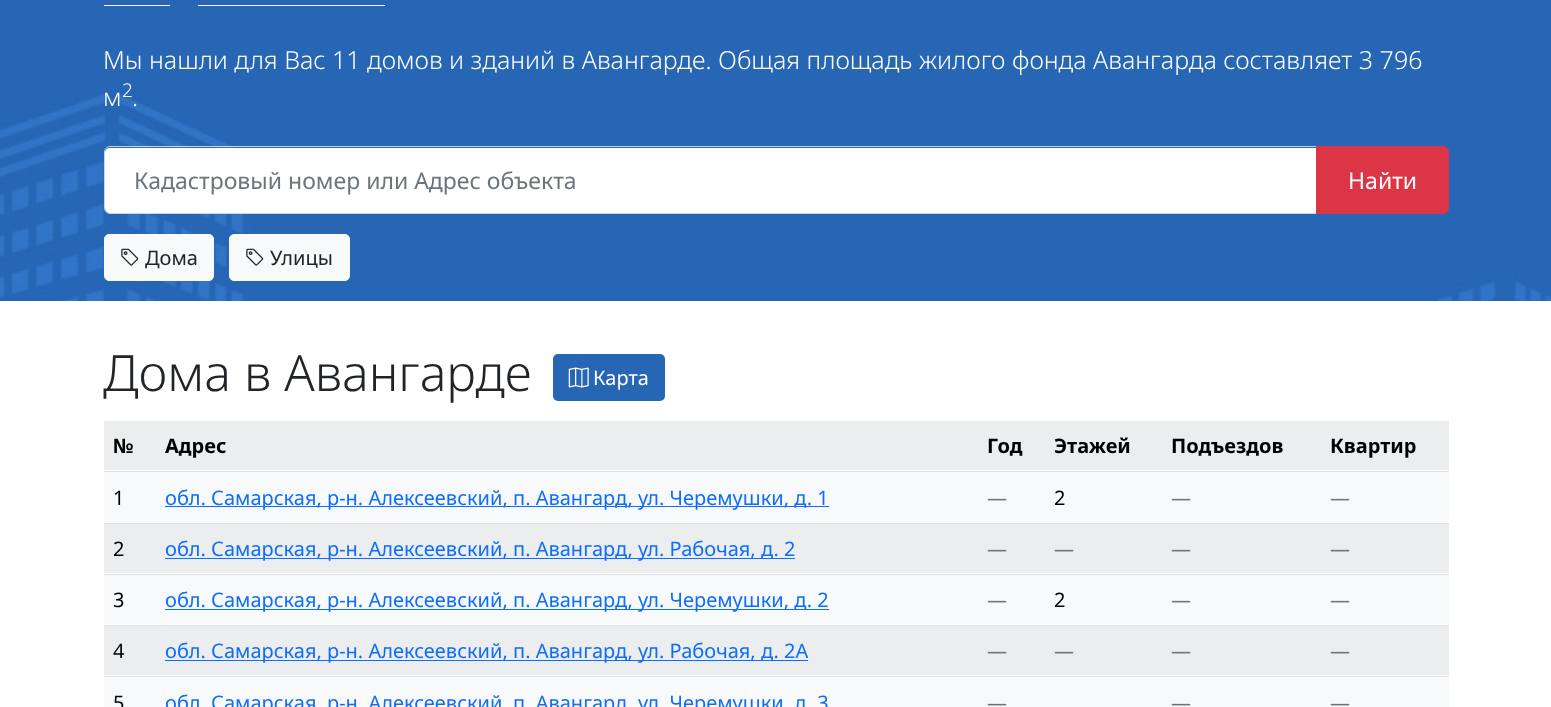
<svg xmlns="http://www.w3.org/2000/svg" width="1551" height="707">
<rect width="100%" height="100%" fill="#fff"/>
<rect width="1551" height="94" fill="#2766b5"/>
<image x="0" y="94" width="1551" height="207" href="media/1.png"/>
<rect x="104" y="5" width="66" height="1" fill="#fff"/>
<rect x="198" y="5" width="187" height="1" fill="#fff"/>
<text x="103" y="69" style="font-family:Noto Sans;font-size:25px;font-weight:300;fill:#fff">Мы нашли для Вас 11 домов и зданий в Авангарде. Общая площадь жилого фонда Авангарда составляет 3 796</text>
<text x="122" y="97" style="font-family:Noto Sans;font-size:19px;font-weight:300;fill:#fff">2</text>
<text x="103" y="106" style="font-family:Noto Sans;font-size:25px;font-weight:300;fill:#fff">м</text>
<text x="132" y="106" style="font-family:Noto Sans;font-size:25px;font-weight:300;fill:#fff">.</text>
<path d="M110 148h1206v65h-1206c-3 0-5-2-5-5v-55c0-3 2-5 5-5z" fill="#fff"/>
<path d="M110 146.5h1207.5v67h-1207.5c-3 0-5.5-2.5-5.5-5.5v-56c0-3 2.5-5.5 5.5-5.5z" fill="none" stroke="#ced4da"/>
<text x="134" y="189" style="font-family:Noto Sans;font-size:23px;fill:#6c757d">Кадастровый номер или Адрес объекта</text>
<path d="M1316.5 146.5h126.5c3 0 5.5 2.5 5.5 5.5v56c0 3-2.5 5.5-5.5 5.5h-126.5z" fill="#dc3545" stroke="#dc3545"/>
<text x="1348" y="189" style="font-family:Noto Sans;font-size:23px;fill:#fff">Найти</text>
<rect x="104.5" y="234.5" width="109" height="46" rx="4.5" fill="#f8f9fa" stroke="#f8f9fa"/>
<image x="121" y="248" width="18" height="18" href="media/2.png"/>
<text x="145" y="265" style="font-family:Noto Sans;font-size:20px;fill:#212529">Дома</text>
<rect x="229.5" y="234.5" width="120" height="46" rx="4.5" fill="#f8f9fa" stroke="#f8f9fa"/>
<image x="246" y="248" width="18" height="18" href="media/2.png"/>
<text x="270" y="265" style="font-family:Noto Sans;font-size:20px;fill:#212529">Улицы</text>
<text x="103" y="391" style="font-family:Noto Sans;font-size:50px;font-weight:300;fill:#212529">Дома в Авангарде</text>
<rect x="553" y="354" width="112" height="47" rx="5" fill="#2766b5"/>
<image x="568" y="367" width="21" height="21" href="media/3.png"/>
<text x="593" y="385" style="font-family:Noto Sans;font-size:20px;fill:#fff">Карта</text>
<rect x="104" y="421" width="1345" height="49" fill="#ecedee"/>
<text x="113" y="453" style="font-family:Noto Sans;font-size:20px;font-weight:bold;fill:#000">№</text>
<text x="165" y="453" style="font-family:Noto Sans;font-size:20px;font-weight:bold;fill:#000">Адрес</text>
<text x="987" y="453" style="font-family:Noto Sans;font-size:20px;font-weight:bold;fill:#000">Год</text>
<text x="1054" y="453" style="font-family:Noto Sans;font-size:20px;font-weight:bold;fill:#000">Этажей</text>
<text x="1171" y="453" style="font-family:Noto Sans;font-size:20px;font-weight:bold;fill:#000">Подъездов</text>
<rect x="104" y="471" width="1345" height="1" fill="#dfe0e1"/>
<text x="1330" y="453" style="font-family:Noto Sans;font-size:20px;font-weight:bold;fill:#000">Квартир</text>
<rect x="104" y="472" width="1345" height="49" fill="#f8f9fa"/>
<text x="113" y="505" style="font-family:Noto Sans;font-size:20px;fill:#000">1</text>
<rect x="165" y="506" width="664" height="1" fill="#0d6efd"/>
<text x="165" y="505" style="font-family:Noto Sans;font-size:20px;fill:#0d6efd">обл. Самарская, р-н. Алексеевский, п. Авангард, ул. Черемушки, д. 1</text>
<text x="987" y="505" style="font-family:Noto Sans;font-size:20px;fill:#6c757d">—</text>
<text x="1054" y="505" style="font-family:Noto Sans;font-size:20px;fill:#000">2</text>
<text x="1171" y="505" style="font-family:Noto Sans;font-size:20px;fill:#6c757d">—</text>
<rect x="104" y="523" width="1345" height="1" fill="#dfe0e1"/>
<text x="1330" y="505" style="font-family:Noto Sans;font-size:20px;fill:#6c757d">—</text>
<rect x="104" y="524" width="1345" height="49" fill="#ecedee"/>
<text x="113" y="556" style="font-family:Noto Sans;font-size:20px;fill:#000">2</text>
<rect x="165" y="558" width="630" height="1" fill="#0d6efd"/>
<text x="165" y="556" style="font-family:Noto Sans;font-size:20px;fill:#0d6efd">обл. Самарская, р-н. Алексеевский, п. Авангард, ул. Рабочая, д. 2</text>
<text x="987" y="556" style="font-family:Noto Sans;font-size:20px;fill:#6c757d">—</text>
<text x="1054" y="556" style="font-family:Noto Sans;font-size:20px;fill:#6c757d">—</text>
<text x="1171" y="556" style="font-family:Noto Sans;font-size:20px;fill:#6c757d">—</text>
<rect x="104" y="574" width="1345" height="1" fill="#dfe0e1"/>
<text x="1330" y="556" style="font-family:Noto Sans;font-size:20px;fill:#6c757d">—</text>
<rect x="104" y="575" width="1345" height="49" fill="#f8f9fa"/>
<text x="113" y="607" style="font-family:Noto Sans;font-size:20px;fill:#000">3</text>
<rect x="165" y="609" width="664" height="1" fill="#0d6efd"/>
<text x="165" y="607" style="font-family:Noto Sans;font-size:20px;fill:#0d6efd">обл. Самарская, р-н. Алексеевский, п. Авангард, ул. Черемушки, д. 2</text>
<text x="987" y="607" style="font-family:Noto Sans;font-size:20px;fill:#6c757d">—</text>
<text x="1054" y="607" style="font-family:Noto Sans;font-size:20px;fill:#000">2</text>
<text x="1171" y="607" style="font-family:Noto Sans;font-size:20px;fill:#6c757d">—</text>
<rect x="104" y="625" width="1345" height="1" fill="#dfe0e1"/>
<text x="1330" y="607" style="font-family:Noto Sans;font-size:20px;fill:#6c757d">—</text>
<rect x="104" y="626" width="1345" height="49" fill="#ecedee"/>
<text x="113" y="658" style="font-family:Noto Sans;font-size:20px;fill:#000">4</text>
<rect x="165" y="660" width="643" height="1" fill="#0d6efd"/>
<text x="165" y="658" style="font-family:Noto Sans;font-size:20px;fill:#0d6efd">обл. Самарская, р-н. Алексеевский, п. Авангард, ул. Рабочая, д. 2А</text>
<text x="987" y="658" style="font-family:Noto Sans;font-size:20px;fill:#6c757d">—</text>
<text x="1054" y="658" style="font-family:Noto Sans;font-size:20px;fill:#6c757d">—</text>
<text x="1171" y="658" style="font-family:Noto Sans;font-size:20px;fill:#6c757d">—</text>
<rect x="104" y="676" width="1345" height="1" fill="#dfe0e1"/>
<text x="1330" y="658" style="font-family:Noto Sans;font-size:20px;fill:#6c757d">—</text>
<rect x="104" y="677" width="1345" height="30" fill="#f8f9fa"/>
<text x="113" y="710" style="font-family:Noto Sans;font-size:20px;fill:#000">5</text>
<text x="165" y="710" style="font-family:Noto Sans;font-size:20px;fill:#0d6efd">обл. Самарская, р-н. Алексеевский, п. Авангард, ул. Черемушки, д. 3</text>
<text x="987" y="710" style="font-family:Noto Sans;font-size:20px;fill:#6c757d">—</text>
<text x="1171" y="710" style="font-family:Noto Sans;font-size:20px;fill:#6c757d">—</text>
<text x="1330" y="710" style="font-family:Noto Sans;font-size:20px;fill:#6c757d">—</text>
</svg>
